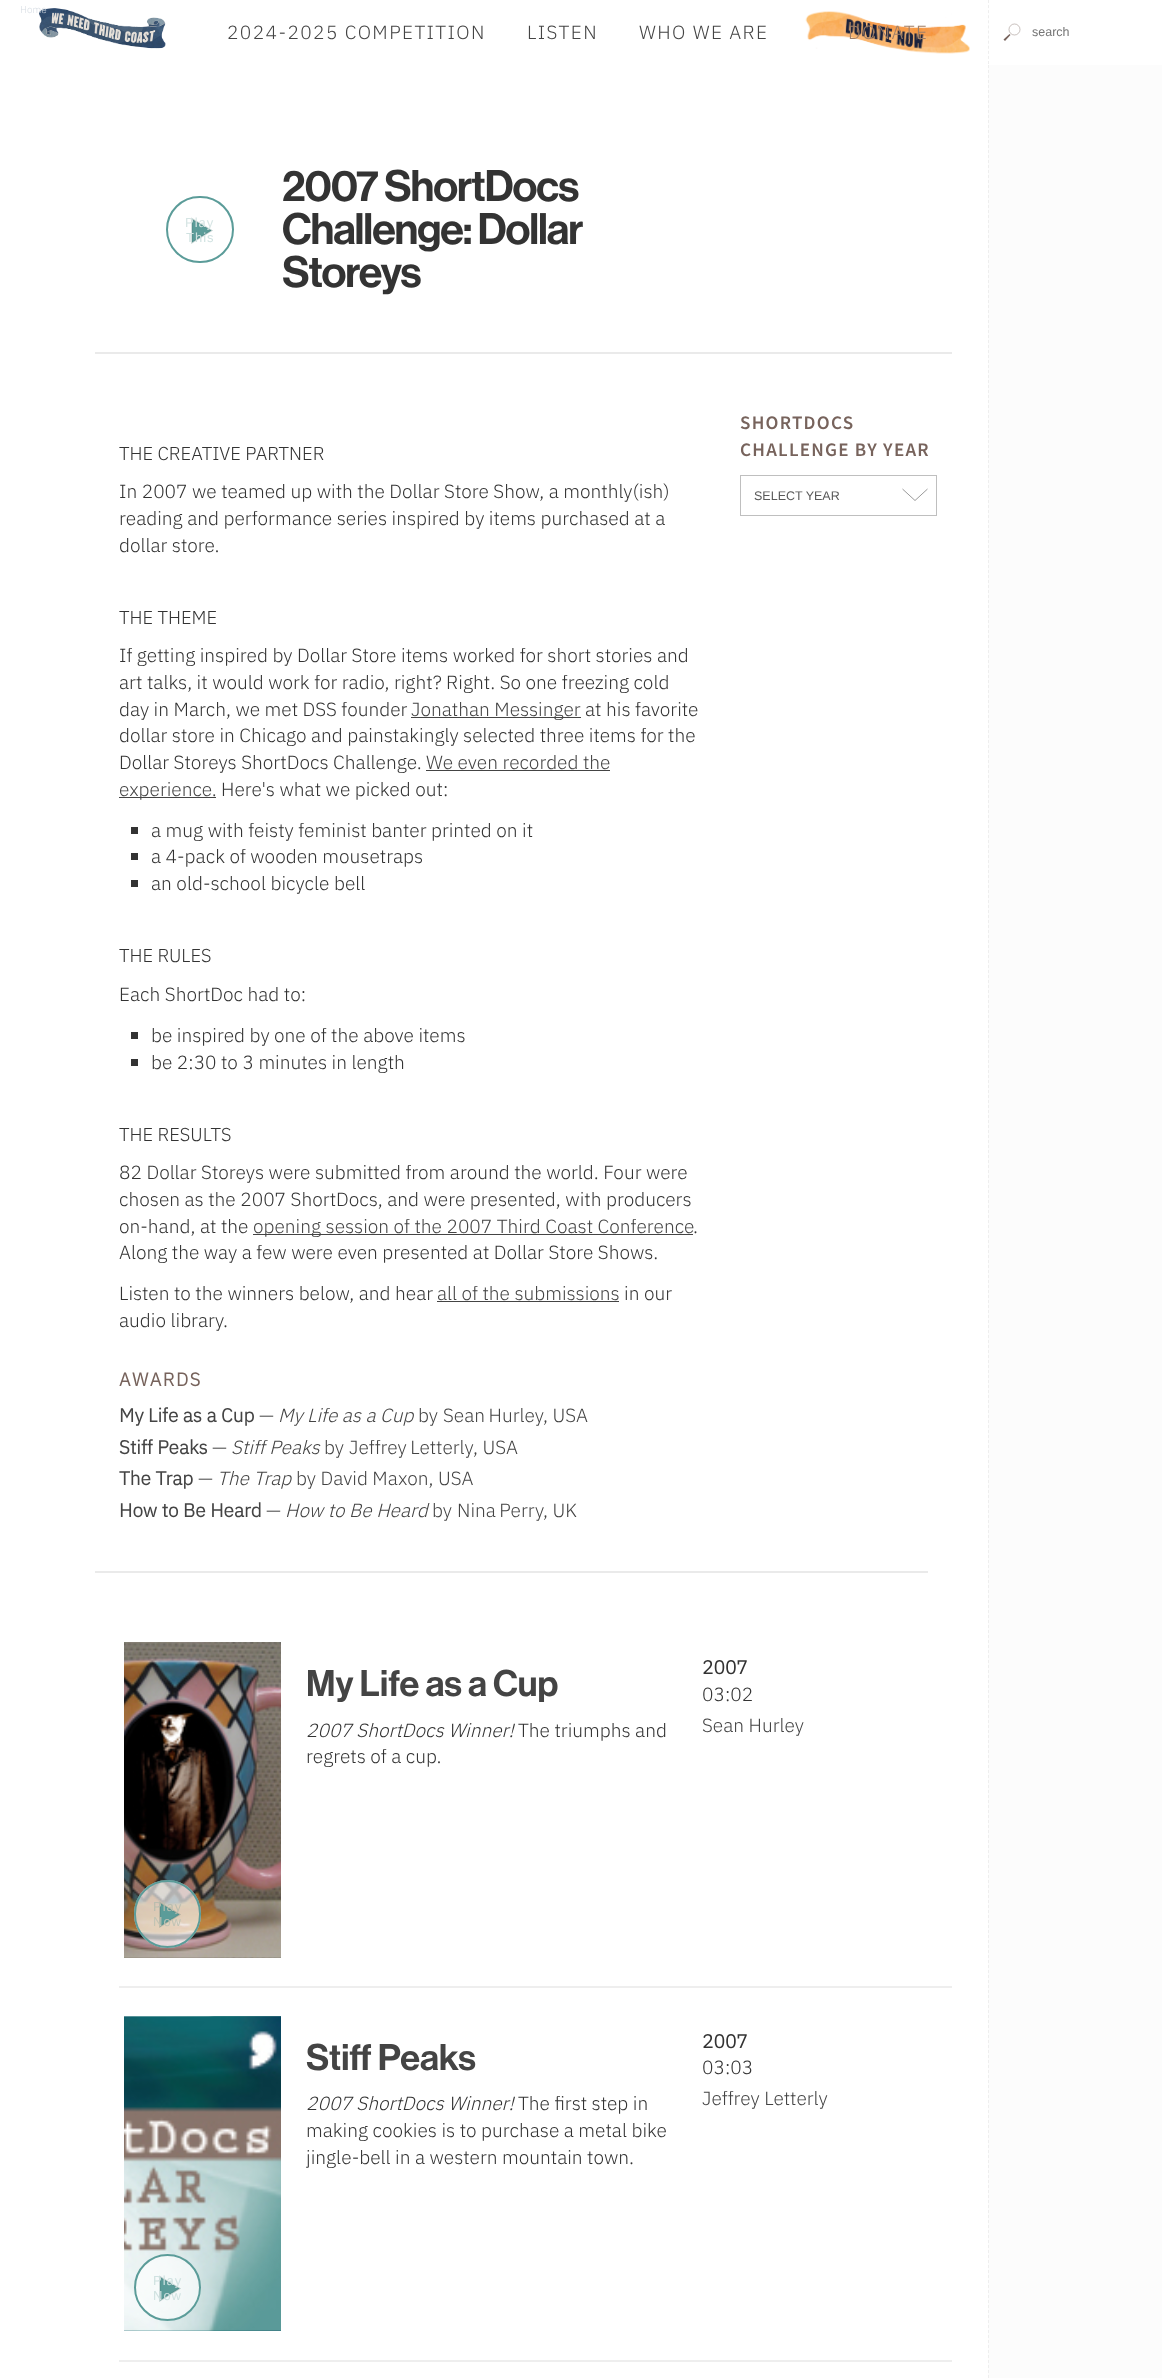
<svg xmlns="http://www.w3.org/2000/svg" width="1162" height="2378">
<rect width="100%" height="100%" fill="#fff"/>
<image x="39" y="8" width="127" height="41" href="media/1.png"/>
<text x="20" y="13" style="font-family:IBM Plex Sans;font-size:10px;font-weight:300;fill:#d8dee4">Home</text>
<text x="227" y="39" style="font-family:IBM Plex Sans;font-size:19.1px;font-weight:300;letter-spacing:1.4px;fill:#444">2024-2025 COMPETITION</text>
<text x="527" y="39" style="font-family:IBM Plex Sans;font-size:19.1px;font-weight:300;letter-spacing:1.4px;fill:#444">LISTEN</text>
<text x="639" y="39" style="font-family:IBM Plex Sans;font-size:19.1px;font-weight:300;letter-spacing:1.4px;fill:#444">WHO WE ARE</text>
<image x="805" y="11" width="165" height="43" href="media/2.png"/>
<text x="848" y="39" style="font-family:IBM Plex Sans;font-size:19.1px;font-weight:300;letter-spacing:1.4px;fill:#a07f67">DONATE</text>
<path d="M988.5 0v64" fill="none" stroke="#eee" stroke-dasharray="3 2.08"/>
<circle cx="1014.5" cy="29.5" r="5.5" fill="none" stroke="#77635c" stroke-width="0.4"/>
<path d="M1005 41l-1.5-1.5l6-5.5l1 1" fill="#77635c"/>
<text x="1032" y="36" style="font-family:Liberation Sans;font-size:12.5px;fill:#757575">search</text>
<rect x="988" y="65" width="174" height="2313" fill="#fcfcfc"/>
<path d="M988.5 65v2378" fill="none" stroke="#eee" stroke-dasharray="3 2"/>
<path d="M192 219v23.5l19.5-12z" fill="#5b9c99" stroke="#4473714d" stroke-width="1.6"/>
<rect x="167" y="197" width="66" height="65" rx="32.5" fill="none" stroke="#5b9c99" stroke-width="2"/>
<text x="185" y="227" style="font-family:Liberation Sans;font-size:13px;letter-spacing:1px;fill:#d6e5e4">Play</text>
<text x="186" y="242" style="font-family:Liberation Sans;font-size:13px;letter-spacing:1px;fill:#d0e2e1">This</text>
<text x="282" y="201" style="font-family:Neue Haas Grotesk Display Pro;font-size:43.25px;font-weight:500;letter-spacing:-1.1px;fill:#333">2007 ShortDocs</text>
<text x="282" y="244" style="font-family:Neue Haas Grotesk Display Pro;font-size:43.25px;font-weight:500;letter-spacing:-1.1px;fill:#333">Challenge: Dollar</text>
<text x="282" y="287" style="font-family:Neue Haas Grotesk Display Pro;font-size:43.25px;font-weight:500;letter-spacing:-1.1px;fill:#333">Storeys</text>
<rect x="95" y="352" width="857" height="2" fill="#eaeaea"/>
<text x="119" y="460" style="font-family:IBM Plex Sans;font-size:18.5px;font-weight:300;fill:#333">THE CREATIVE PARTNER</text>
<text x="119" y="498" style="font-family:IBM Plex Sans;font-size:19.1px;font-weight:300;fill:#333">In 2007 we teamed up with the Dollar Store Show, a monthly(ish)</text>
<text x="119" y="525" style="font-family:IBM Plex Sans;font-size:19.1px;font-weight:300;fill:#333">reading and performance series inspired by items purchased at a</text>
<text x="119" y="552" style="font-family:IBM Plex Sans;font-size:19.1px;font-weight:300;fill:#333">dollar store.</text>
<text x="119" y="624" style="font-family:IBM Plex Sans;font-size:18.5px;font-weight:300;fill:#333">THE THEME</text>
<text x="119" y="662" style="font-family:IBM Plex Sans;font-size:19.1px;font-weight:300;fill:#333">If getting inspired by Dollar Store items worked for short stories and</text>
<text x="119" y="689" style="font-family:IBM Plex Sans;font-size:19.1px;font-weight:300;fill:#333">art talks, it would work for radio, right? Right. So one freezing cold</text>
<text x="119" y="716" style="font-family:IBM Plex Sans;font-size:19.1px;font-weight:300;fill:#333">day in March, we met DSS founder</text>
<rect x="411" y="717" width="170" height="1" fill="#444"/>
<text x="411" y="716" style="font-family:IBM Plex Sans;font-size:19.1px;font-weight:300;fill:#444">Jonathan Messinger</text>
<text x="585" y="716" style="font-family:IBM Plex Sans;font-size:19.1px;font-weight:300;fill:#333">at his favorite</text>
<text x="119" y="742" style="font-family:IBM Plex Sans;font-size:19.1px;font-weight:300;fill:#333">dollar store in Chicago and painstakingly selected three items for the</text>
<text x="119" y="769" style="font-family:IBM Plex Sans;font-size:19.1px;font-weight:300;fill:#333">Dollar Storeys ShortDocs Challenge.</text>
<text x="426" y="769" style="font-family:IBM Plex Sans;font-size:19.1px;font-weight:300;fill:#444">We even recorded the</text>
<rect x="426" y="770" width="184" height="1" fill="#444"/>
<rect x="119" y="797" width="97" height="1" fill="#444"/>
<text x="119" y="796" style="font-family:IBM Plex Sans;font-size:19.1px;font-weight:300;fill:#444">experience.</text>
<text x="221" y="796" style="font-family:IBM Plex Sans;font-size:19.1px;font-weight:300;fill:#333">Here's what we picked out:</text>
<rect x="131" y="827" width="7" height="7" fill="#333"/>
<text x="151" y="837" style="font-family:IBM Plex Sans;font-size:19.1px;font-weight:300;fill:#333">a mug with feisty feminist banter printed on it</text>
<rect x="131" y="853" width="7" height="7" fill="#333"/>
<text x="151" y="863" style="font-family:IBM Plex Sans;font-size:19.1px;font-weight:300;fill:#333">a 4-pack of wooden mousetraps</text>
<rect x="131" y="880" width="7" height="7" fill="#333"/>
<text x="151" y="890" style="font-family:IBM Plex Sans;font-size:19.1px;font-weight:300;fill:#333">an old-school bicycle bell</text>
<text x="119" y="962" style="font-family:IBM Plex Sans;font-size:18.5px;font-weight:300;fill:#333">THE RULES</text>
<text x="119" y="1001" style="font-family:IBM Plex Sans;font-size:19.1px;font-weight:300;fill:#333">Each ShortDoc had to:</text>
<rect x="131" y="1032" width="7" height="7" fill="#333"/>
<text x="151" y="1042" style="font-family:IBM Plex Sans;font-size:19.1px;font-weight:300;fill:#333">be inspired by one of the above items</text>
<rect x="131" y="1059" width="7" height="7" fill="#333"/>
<text x="151" y="1069" style="font-family:IBM Plex Sans;font-size:19.1px;font-weight:300;fill:#333">be 2:30 to 3 minutes in length</text>
<text x="119" y="1141" style="font-family:IBM Plex Sans;font-size:18.5px;font-weight:300;fill:#333">THE RESULTS</text>
<text x="119" y="1179" style="font-family:IBM Plex Sans;font-size:19.1px;font-weight:300;fill:#333">82 Dollar Storeys were submitted from around the world. Four were</text>
<text x="119" y="1206" style="font-family:IBM Plex Sans;font-size:19.1px;font-weight:300;fill:#333">chosen as the 2007 ShortDocs, and were presented, with producers</text>
<text x="119" y="1233" style="font-family:IBM Plex Sans;font-size:19.1px;font-weight:300;fill:#333">on-hand, at the</text>
<rect x="253" y="1234" width="440" height="1" fill="#444"/>
<text x="253" y="1233" style="font-family:IBM Plex Sans;font-size:19.1px;font-weight:300;fill:#444">opening session of the 2007 Third Coast Conference</text>
<text x="693" y="1233" style="font-family:IBM Plex Sans;font-size:19.1px;font-weight:300;fill:#333">.</text>
<text x="119" y="1259" style="font-family:IBM Plex Sans;font-size:19.1px;font-weight:300;fill:#333">Along the way a few were even presented at Dollar Store Shows.</text>
<text x="119" y="1300" style="font-family:IBM Plex Sans;font-size:19.1px;font-weight:300;fill:#333">Listen to the winners below, and hear</text>
<text x="437" y="1300" style="font-family:IBM Plex Sans;font-size:19.1px;font-weight:300;fill:#444">all of the submissions</text>
<rect x="437" y="1301" width="182" height="1" fill="#444"/>
<text x="624" y="1300" style="font-family:IBM Plex Sans;font-size:19.1px;font-weight:300;fill:#333">in our</text>
<text x="119" y="1327" style="font-family:IBM Plex Sans;font-size:19.1px;font-weight:300;fill:#333">audio library.</text>
<text x="119" y="1386" style="font-family:IBM Plex Sans;font-size:18.5px;font-weight:bold;letter-spacing:1.5px;fill:#77635c">AWARDS</text>
<text x="119" y="1422" style="font-family:IBM Plex Sans;font-size:19.1px;font-weight:bold;fill:#444">My Life as a Cup</text>
<text x="259" y="1422" style="font-family:IBM Plex Sans;font-size:19.1px;font-weight:300;fill:#444">—</text>
<text x="278" y="1422" style="font-family:IBM Plex Sans;font-size:19.1px;font-weight:300;font-style:italic;fill:#444">My Life as a Cup</text>
<text x="418" y="1422" style="font-family:IBM Plex Sans;font-size:19.1px;font-weight:300;fill:#444">by</text>
<text x="443" y="1422" word-spacing="-1" style="font-family:IBM Plex Sans;font-size:19.1px;font-weight:300;fill:#444">Sean Hurley</text>
<text x="543" y="1422" style="font-family:IBM Plex Sans;font-size:19.1px;font-weight:300;fill:#444">, USA</text>
<text x="119" y="1454" style="font-family:IBM Plex Sans;font-size:19.1px;font-weight:bold;fill:#444">Stiff Peaks</text>
<text x="212" y="1454" style="font-family:IBM Plex Sans;font-size:19.1px;font-weight:300;fill:#444">—</text>
<text x="231" y="1454" style="font-family:IBM Plex Sans;font-size:19.1px;font-weight:300;font-style:italic;fill:#444">Stiff Peaks</text>
<text x="324" y="1454" style="font-family:IBM Plex Sans;font-size:19.1px;font-weight:300;fill:#444">by</text>
<text x="349" y="1454" word-spacing="-1" style="font-family:IBM Plex Sans;font-size:19.1px;font-weight:300;fill:#444">Jeffrey Letterly</text>
<text x="473" y="1454" style="font-family:IBM Plex Sans;font-size:19.1px;font-weight:300;fill:#444">, USA</text>
<text x="119" y="1485" style="font-family:IBM Plex Sans;font-size:19.1px;font-weight:bold;fill:#444">The Trap</text>
<text x="198" y="1485" style="font-family:IBM Plex Sans;font-size:19.1px;font-weight:300;fill:#444">—</text>
<text x="217" y="1485" style="font-family:IBM Plex Sans;font-size:19.1px;font-weight:300;font-style:italic;fill:#444">The Trap</text>
<text x="296" y="1485" style="font-family:IBM Plex Sans;font-size:19.1px;font-weight:300;fill:#444">by David Maxon, USA</text>
<text x="119" y="1517" style="font-family:IBM Plex Sans;font-size:19.1px;font-weight:bold;fill:#444">How to Be Heard</text>
<text x="266" y="1517" style="font-family:IBM Plex Sans;font-size:19.1px;font-weight:300;fill:#444">—</text>
<text x="285" y="1517" style="font-family:IBM Plex Sans;font-size:19.1px;font-weight:300;font-style:italic;fill:#444">How to Be Heard</text>
<text x="432" y="1517" style="font-family:IBM Plex Sans;font-size:19.1px;font-weight:300;fill:#444">by</text>
<text x="457" y="1517" word-spacing="-1" style="font-family:IBM Plex Sans;font-size:19.1px;font-weight:300;fill:#444">Nina Perry</text>
<text x="543" y="1517" style="font-family:IBM Plex Sans;font-size:19.1px;font-weight:300;fill:#444">, UK</text>
<text x="740" y="429" style="font-family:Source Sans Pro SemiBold;font-size:19.1px;font-weight:600;letter-spacing:1.25px;fill:#77635c">SHORTDOCS</text>
<text x="740" y="456" style="font-family:Source Sans Pro SemiBold;font-size:19.1px;font-weight:600;letter-spacing:1.25px;fill:#77635c">CHALLENGE BY YEAR</text>
<path d="M902.5 489l12.5 11.5l12.5-11.5" fill="none" stroke="#333" stroke-width="0.5"/>
<rect x="740.5" y="475.5" width="196" height="40" fill="none" stroke="#bfbfbf"/>
<text x="754" y="500" style="font-family:Liberation Sans;font-size:12.5px;fill:#595959">SELECT YEAR</text>
<rect x="95" y="1571" width="833" height="2" fill="#eaeaea"/>
<text x="306" y="1696" style="font-family:Neue Haas Grotesk Display Pro;font-size:36.25px;font-weight:500;fill:#444">My Life as a Cup</text>
<text x="306" y="1737" style="font-family:IBM Plex Sans;font-size:19.1px;font-weight:300;font-style:italic;fill:#333">2007 ShortDocs Winner!</text>
<text x="518" y="1737" style="font-family:IBM Plex Sans;font-size:19.1px;font-weight:300;fill:#333">The triumphs and</text>
<text x="306" y="1763" style="font-family:IBM Plex Sans;font-size:19.1px;font-weight:300;fill:#333">regrets of a cup.</text>
<text x="702" y="1674" style="font-family:IBM Plex Sans;font-size:19.1px;font-weight:bold;fill:#333">2007</text>
<text x="702" y="1701" style="font-family:IBM Plex Sans;font-size:19.1px;font-weight:300;fill:#333">03:02</text>
<text x="702" y="1732" style="font-family:IBM Plex Sans;font-size:19.1px;font-weight:300;fill:#444">Sean Hurley</text>
<image x="124" y="1642" width="157" height="316" href="media/3.png"/>
<rect x="134" y="1880" width="67" height="68" rx="33.5" fill="#ffffffa6"/>
<path d="M160 1903v23.5l19.5-12z" fill="#5b9c99" stroke="#4473714d" stroke-width="1.6"/>
<rect x="135" y="1881" width="65" height="66" rx="32.5" fill="none" stroke="#5b9c99" stroke-width="2"/>
<text x="153" y="1911" style="font-family:Liberation Sans;font-size:13px;letter-spacing:1px;fill:#b9bdaf">Play</text>
<text x="153" y="1926" style="font-family:Liberation Sans;font-size:13px;letter-spacing:1px;fill:#c0c3b4">Now</text>
<rect x="119" y="1986" width="833" height="2" fill="#eee"/>
<text x="306" y="2070" style="font-family:Neue Haas Grotesk Display Pro;font-size:36.25px;font-weight:500;fill:#444">Stiff Peaks</text>
<text x="306" y="2110" style="font-family:IBM Plex Sans;font-size:19.1px;font-weight:300;font-style:italic;fill:#333">2007 ShortDocs Winner!</text>
<text x="518" y="2110" style="font-family:IBM Plex Sans;font-size:19.1px;font-weight:300;fill:#333">The first step in</text>
<text x="306" y="2137" style="font-family:IBM Plex Sans;font-size:19.1px;font-weight:300;fill:#333">making cookies is to purchase a metal bike</text>
<text x="306" y="2164" style="font-family:IBM Plex Sans;font-size:19.1px;font-weight:300;fill:#333">jingle-bell in a western mountain town.</text>
<text x="702" y="2048" style="font-family:IBM Plex Sans;font-size:19.1px;font-weight:bold;fill:#333">2007</text>
<text x="702" y="2074" style="font-family:IBM Plex Sans;font-size:19.1px;font-weight:300;fill:#333">03:03</text>
<text x="702" y="2105" style="font-family:IBM Plex Sans;font-size:19.1px;font-weight:300;fill:#444">Jeffrey Letterly</text>
<image x="124" y="2016" width="157" height="315" href="media/4.png"/>
<circle cx="167.5" cy="2287.5" r="33.5" fill="#ffffffa6"/>
<path d="M160 2277v23.5l19.5-12z" fill="#5b9c99" stroke="#4473714d" stroke-width="1.6"/>
<circle cx="167.5" cy="2287.5" r="32.5" fill="none" stroke="#5b9c99" stroke-width="2"/>
<text x="153" y="2285" style="font-family:Liberation Sans;font-size:13px;letter-spacing:1px;fill:#d0e2e1">Play</text>
<text x="153" y="2300" style="font-family:Liberation Sans;font-size:13px;letter-spacing:1px;fill:#d0e2e1">Now</text>
<rect x="119" y="2360" width="833" height="2" fill="#eee"/>
</svg>
